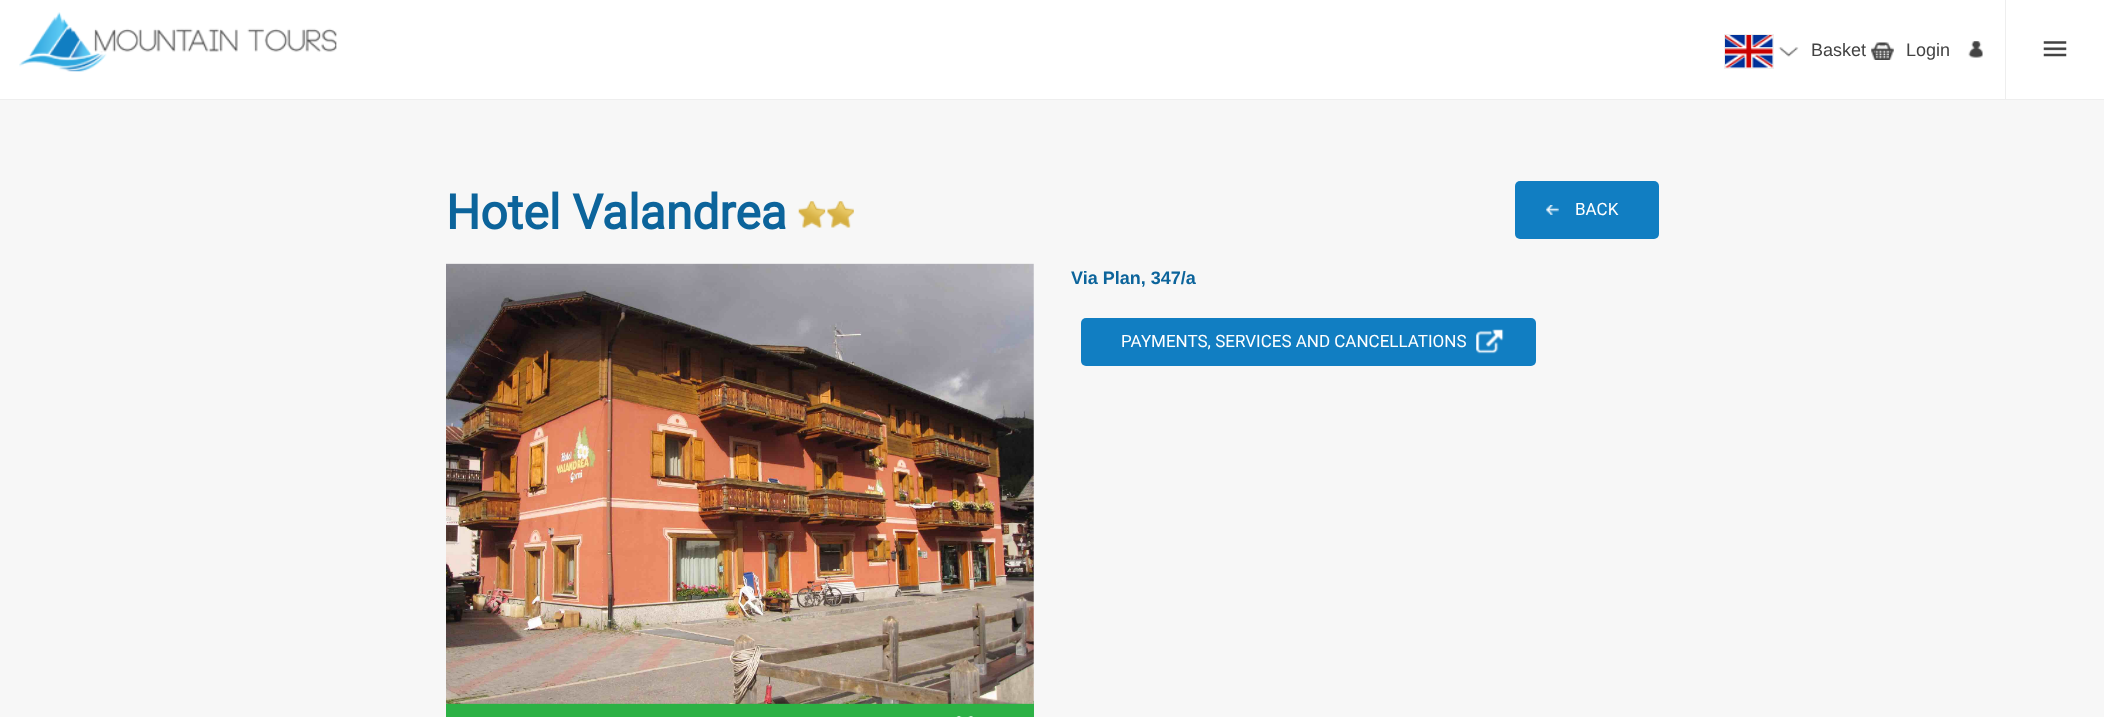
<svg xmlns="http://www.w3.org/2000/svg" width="2104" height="717">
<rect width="100%" height="100%" fill="#f7f7f7"/>
<rect width="2104" height="99" fill="#fff"/>
<rect y="99" width="2104" height="1" fill="#eee"/>
<image x="19" y="12" width="318" height="60" href="media/1.png"/>
<rect x="1724.5" y="34.5" width="49" height="34" fill="none" stroke="#eee"/>
<image x="1725" y="35" width="48" height="33" href="media/2.png"/>
<image x="1778" y="47" width="21" height="10" href="media/3.png"/>
<text x="1811" y="56" style="font-family:Liberation Sans;font-size:18px;fill:#434343">Basket</text>
<image x="1871" y="42" width="23" height="18" href="media/4.png"/>
<image x="1968" y="41" width="15" height="17" href="media/5.png"/>
<text x="1906" y="56" style="font-family:Liberation Sans;font-size:18px;fill:#434343">Login</text>
<image x="2043" y="41" width="24" height="16" href="media/6.png"/>
<rect x="2005" width="1" height="99" fill="#eee"/>
<text x="446" y="229" style="font-family:Roboto;font-size:48px;font-weight:bold;fill:#0c649b">Hotel Valandrea</text>
<image x="798" y="201" width="56" height="27" href="media/7.png"/>
<rect x="1515" y="181" width="144" height="58" rx="5" fill="#117ec2"/>
<image x="1546" y="205" width="13" height="10" href="media/8.png"/>
<text x="1575" y="215" style="font-family:Roboto;font-size:17px;fill:#fff">BACK</text>
<rect x="446" y="701" width="588" height="16" fill="#2cb145"/>
<image x="446" y="263" width="588" height="441" href="media/9.png"/>
<image x="956" y="716" width="17" height="1" href="media/10.png"/>
<text x="1071" y="284" style="font-family:Liberation Sans;font-size:18px;font-weight:bold;fill:#0c649b">Via Plan, 347/a</text>
<rect x="1081" y="318" width="455" height="48" rx="5" fill="#117ec2"/>
<image x="1476" y="329" width="28" height="25" href="media/11.png"/>
<text x="1121" y="347" style="font-family:Roboto;font-size:17px;fill:#fff">PAYMENTS, SERVICES AND CANCELLATIONS</text>
</svg>
